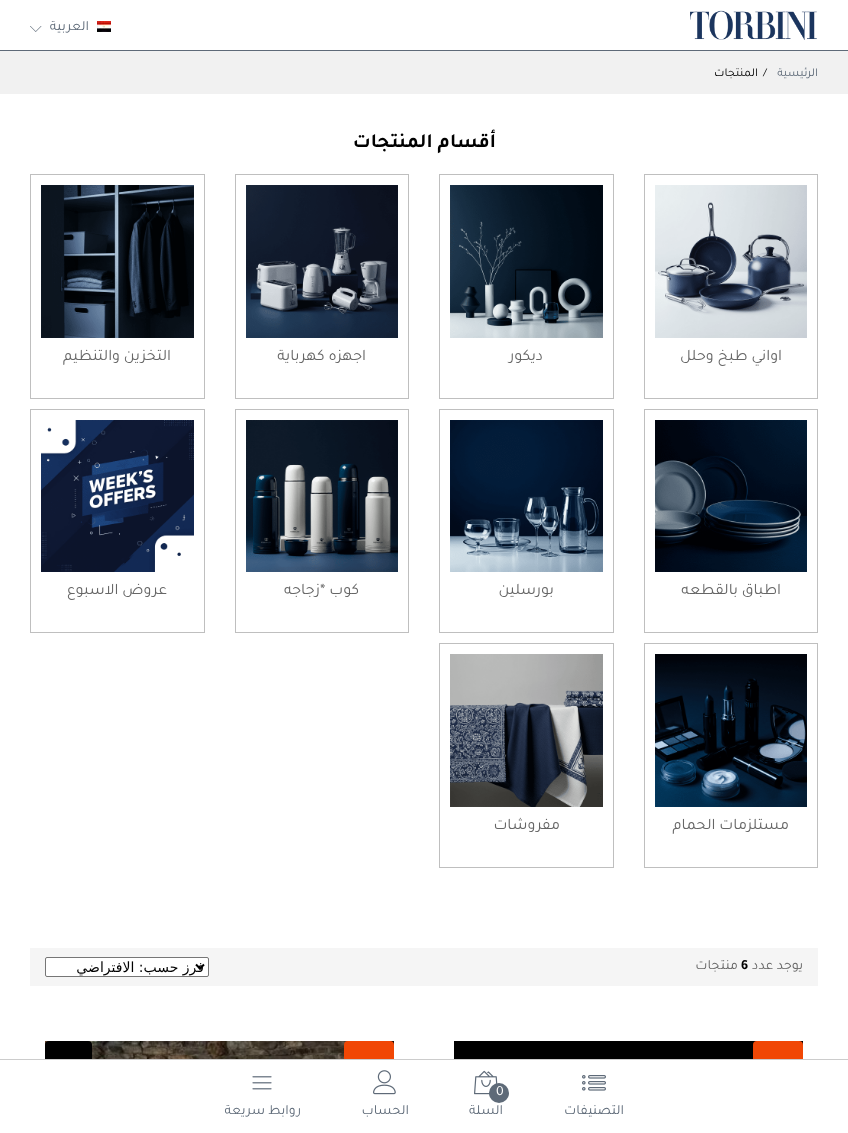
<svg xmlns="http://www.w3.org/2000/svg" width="848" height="1133">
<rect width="100%" height="100%" fill="#fff"/>
<rect y="50" width="848" height="1" fill="#5e6a78"/>
<image x="690" y="10" width="127" height="30" href="media/1.png"/>
<image x="97" y="21" width="14" height="11" href="media/2.png"/>
<text x="89" y="30" style="font-family:Tajawal;font-size:14px;direction:rtl;fill:#5e6a78">العربية</text>
<image x="30" y="26" width="12" height="6" href="media/3.png"/>
<rect y="51" width="848" height="43" fill="#f1f1f1"/>
<text x="818" y="76" style="font-family:Tajawal;font-size:12px;direction:rtl;fill:#5e6a78">الرئيسية</text>
<text x="763" y="76" style="font-family:Tajawal;font-size:12px;fill:#000">/</text>
<text x="758" y="76" style="font-family:Tajawal;font-size:12px;direction:rtl;fill:#000">المنتجات</text>
<text x="496" y="147" style="font-family:Tajawal;font-size:20px;font-weight:bold;direction:rtl;fill:#000">أقسام المنتجات</text>
<rect x="644.5" y="174.5" width="173" height="224" fill="none" stroke="#bfbfbf"/>
<image x="655" y="185" width="152" height="153" href="media/4.png"/>
<text x="782" y="360" style="font-family:Tajawal;font-size:16px;direction:rtl;fill:#666">اواني طبخ وحلل</text>
<rect x="439.5" y="174.5" width="174" height="224" fill="none" stroke="#bfbfbf"/>
<image x="450" y="185" width="153" height="153" href="media/5.png"/>
<text x="543" y="360" style="font-family:Tajawal;font-size:16px;direction:rtl;fill:#666">ديكور</text>
<rect x="235.5" y="174.5" width="173" height="224" fill="none" stroke="#bfbfbf"/>
<image x="246" y="185" width="152" height="153" href="media/6.png"/>
<text x="366" y="360" style="font-family:Tajawal;font-size:16px;direction:rtl;fill:#666">اجهزه كهرباية</text>
<rect x="30.5" y="174.5" width="174" height="224" fill="none" stroke="#bfbfbf"/>
<image x="41" y="185" width="153" height="153" href="media/7.png"/>
<text x="171" y="360" style="font-family:Tajawal;font-size:16px;direction:rtl;fill:#666">التخزين والتنظيم</text>
<rect x="644.5" y="409.5" width="173" height="223" fill="none" stroke="#bfbfbf"/>
<image x="655" y="420" width="152" height="152" href="media/8.png"/>
<text x="781" y="594" style="font-family:Tajawal;font-size:16px;direction:rtl;fill:#666">اطباق بالقطعه</text>
<rect x="439.5" y="409.5" width="174" height="223" fill="none" stroke="#bfbfbf"/>
<image x="450" y="420" width="153" height="152" href="media/9.png"/>
<text x="554" y="594" style="font-family:Tajawal;font-size:16px;direction:rtl;fill:#666">بورسلين</text>
<rect x="235.5" y="409.5" width="173" height="223" fill="none" stroke="#bfbfbf"/>
<image x="246" y="420" width="152" height="152" href="media/10.png"/>
<text x="359" y="594" style="font-family:Tajawal;font-size:16px;direction:rtl;fill:#666">كوب *زجاجه</text>
<rect x="30.5" y="409.5" width="174" height="223" fill="none" stroke="#bfbfbf"/>
<image x="41" y="420" width="153" height="152" href="media/11.png"/>
<text x="167" y="594" style="font-family:Tajawal;font-size:16px;direction:rtl;fill:#666">عروض الاسبوع</text>
<rect x="644.5" y="643.5" width="173" height="224" fill="none" stroke="#bfbfbf"/>
<image x="655" y="654" width="152" height="153" href="media/12.png"/>
<text x="789" y="829" style="font-family:Tajawal;font-size:16px;direction:rtl;fill:#666">مستلزمات الحمام</text>
<rect x="439.5" y="643.5" width="174" height="224" fill="none" stroke="#bfbfbf"/>
<image x="450" y="654" width="153" height="153" href="media/13.png"/>
<text x="560" y="829" style="font-family:Tajawal;font-size:16px;direction:rtl;fill:#666">مفروشات</text>
<rect x="30" y="948" width="788" height="38" fill="#f5f5f5"/>
<text x="803" y="969" style="font-family:Tajawal;font-size:14px;direction:rtl;fill:#666">يوجد عدد</text>
<text x="741" y="969" style="font-family:Tajawal;font-size:14px;font-weight:bold;fill:#000">6</text>
<text x="738" y="969" style="font-family:Tajawal;font-size:14px;direction:rtl;fill:#666">منتجات</text>
<rect x="45.5" y="957.5" width="163" height="19" rx="1.5" fill="#fff" stroke="#767676"/>
<path d="M196 964.5l4 4l4-4" fill="none" stroke="#000" stroke-width="2"/>
<text x="204" y="972" style="font-family:DejaVu Sans;font-size:14px;direction:rtl;fill:#000">فرز حسب: الافتراضي</text>
<image x="454" y="1041" width="349" height="18" href="media/14.png"/>
<rect x="753" y="1041" width="50" height="30" rx="4" fill="#f14705"/>
<image x="45" y="1041" width="349" height="18" href="media/15.png"/>
<rect x="344" y="1041" width="50" height="30" rx="4" fill="#f14705"/>
<rect x="45" y="1041" width="47" height="30" rx="4" fill="#000"/>
<rect x="45" y="1060" width="758" height="11" fill="#fff"/>
<rect y="1059" width="848" height="1" fill="#ccc"/>
<image x="582" y="1075" width="24" height="16" href="media/16.png"/>
<text x="624" y="1114" style="font-family:Tajawal;font-size:14px;direction:rtl;fill:#5e6a78">التصنيفات</text>
<image x="474" y="1070" width="24" height="25" href="media/17.png"/>
<circle cx="499" cy="1093" r="10" fill="#5e6a78"/>
<text x="496" y="1095" style="font-family:Tajawal;font-size:14px;fill:#fff">0</text>
<text x="503" y="1114" style="font-family:Tajawal;font-size:14px;direction:rtl;fill:#5e6a78">السلة</text>
<image x="373" y="1070" width="23" height="25" href="media/18.png"/>
<text x="409" y="1114" style="font-family:Tajawal;font-size:14px;direction:rtl;fill:#5e6a78">الحساب</text>
<image x="252" y="1076" width="20" height="14" href="media/19.png"/>
<text x="301" y="1114" style="font-family:Tajawal;font-size:14px;direction:rtl;fill:#5e6a78">روابط سريعة</text>
</svg>
